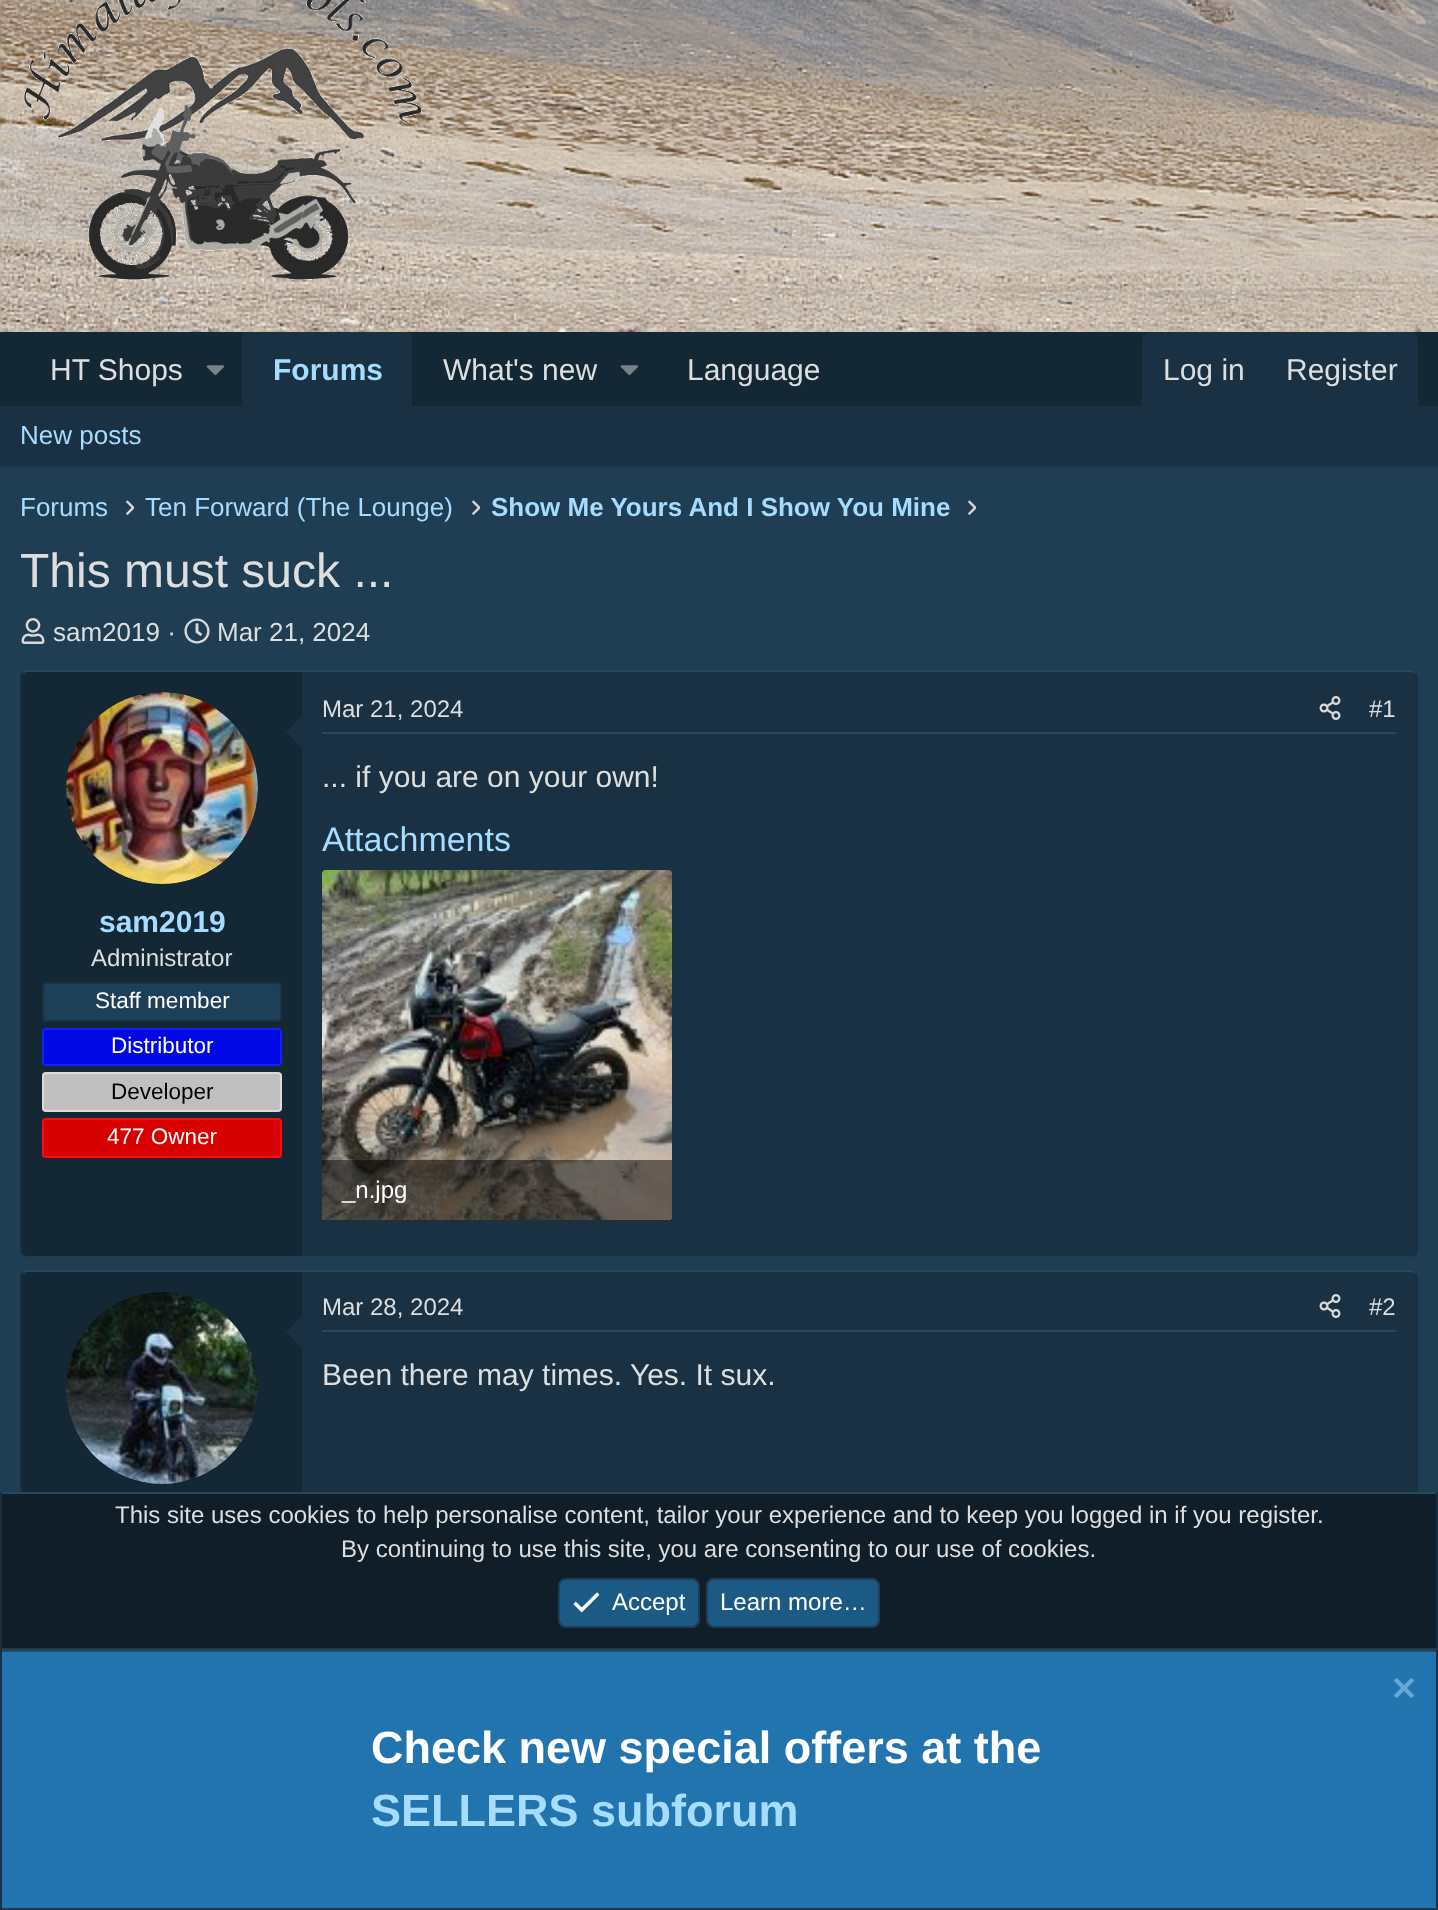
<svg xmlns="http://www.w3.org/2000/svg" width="1438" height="1910">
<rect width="100%" height="100%" fill="#203e53"/>
<image x="0" y="0" width="1438" height="332" href="media/1.png"/>
<image x="24" y="0" width="398" height="280" href="media/2.png"/>
<rect y="332" width="1438" height="74" fill="#142734"/>
<text x="50" y="380" style="font-family:Liberation Sans;font-size:30px;fill:#dedede">HT Shops</text>
<image x="206" y="365" width="18" height="11" href="media/3.png"/>
<path d="M246 332h162c2 0 4 2 4 4v70h-170v-70c0-2 2-4 4-4z" fill="#193142"/>
<text x="273" y="380" style="font-family:Liberation Sans;font-size:30px;font-weight:bold;fill:#a6dcff">Forums</text>
<text x="443" y="380" style="font-family:Liberation Sans;font-size:30px;fill:#dedede">What's new</text>
<image x="620" y="365" width="18" height="11" href="media/3.png"/>
<text x="687" y="380" style="font-family:Liberation Sans;font-size:30px;fill:#dedede">Language</text>
<path d="M1150 332h260c4.5 0 8 3.5 8 8v66h-276v-66c0-4.5 3.5-8 8-8z" fill="#193142"/>
<text x="1163" y="380" style="font-family:Liberation Sans;font-size:30px;fill:#dedede">Log in</text>
<text x="1286" y="380" style="font-family:Liberation Sans;font-size:30px;fill:#dedede">Register</text>
<rect y="406" width="1438" height="60" fill="#193142"/>
<rect y="466" width="1438" height="2" fill="#1d3c50"/>
<text x="20" y="444" style="font-family:Liberation Sans;font-size:26px;fill:#a6dcff">New posts</text>
<text x="20" y="516" style="font-family:Liberation Sans;font-size:26px;fill:#a6dcff">Forums</text>
<image x="126" y="500" width="8" height="15" href="media/4.png"/>
<text x="145" y="516" style="font-family:Liberation Sans;font-size:26px;fill:#a6dcff">Ten Forward (The Lounge)</text>
<image x="472" y="500" width="8" height="15" href="media/4.png"/>
<text x="491" y="516" style="font-family:Liberation Sans;font-size:26px;font-weight:bold;fill:#a6dcff">Show Me Yours And I Show You Mine</text>
<image x="968" y="500" width="8" height="15" href="media/4.png"/>
<text x="20" y="587" style="font-family:Liberation Sans;font-size:48px;fill:#dedede">This must suck ...</text>
<image x="21" y="618" width="24" height="26" href="media/5.png"/>
<text x="53" y="641" style="font-family:Liberation Sans;font-size:26px;fill:#dedede">sam2019 ·</text>
<image x="184" y="618" width="26" height="26" href="media/6.png"/>
<text x="217" y="641" style="font-family:Liberation Sans;font-size:26px;fill:#dedede">Mar 21, 2024</text>
<rect x="20" y="670" width="1398" height="588" rx="8" fill="#193142"/>
<path d="M23 673c1.5-1.5 3-2 5-2h1382c2 0 3.5 .5 5 2" fill="none" stroke="#244961" stroke-width="2"/>
<path d="M1415 673c1.5 1.5 2 3 2 5v572c0 2-.5 3.5-2 5" fill="none" stroke="#173142" stroke-width="2"/>
<path d="M1415 1255c-1.5 1.5-3 2-5 2h-1382c-2 0-3.5-.5-5-2" fill="none" stroke="#1d3c50" stroke-width="2"/>
<path d="M23 1255c-1.5-1.5-2-3-2-5v-572c0-2 .5-3.5 2-5" fill="none" stroke="#173142" stroke-width="2"/>
<path d="M28 672h274v584h-274c-3.5 0-6-2.5-6-6v-572c0-3.5 2.5-6 6-6z" fill="#142734"/>
<image x="66" y="692" width="192" height="192" href="media/7.png"/>
<path d="M304 714v36l-18-18z" fill="#193142"/>
<text x="99" y="932" style="font-family:Liberation Sans;font-size:30px;font-weight:bold;fill:#a6dcff">sam2019</text>
<text x="91" y="966" style="font-family:Liberation Sans;font-size:24px;fill:#dedede">Administrator</text>
<rect x="43" y="983" width="238" height="38" rx="3" fill="#1d3f57" stroke="#193142" stroke-width="2"/>
<text x="95" y="1008" style="font-family:Liberation Sans;font-size:22.5px;fill:#fff">Staff member</text>
<rect x="43" y="1029" width="238" height="36" rx="3" fill="#0008e3" stroke="#171fff" stroke-width="2"/>
<text x="111" y="1053" style="font-family:Liberation Sans;font-size:22.5px;fill:#fff">Distributor</text>
<rect x="43" y="1073" width="238" height="38" rx="3" fill="#c0c0c0" stroke="#dadada" stroke-width="2"/>
<text x="111" y="1099" style="font-family:Liberation Sans;font-size:22.5px;fill:#000">Developer</text>
<rect x="43" y="1119" width="238" height="38" rx="3" fill="#d80000" stroke="#ff0c0c" stroke-width="2"/>
<text x="107" y="1144" style="font-family:Liberation Sans;font-size:22.5px;fill:#fff">477 Owner</text>
<rect x="322" y="732" width="1074" height="2" fill="#244961"/>
<text x="322" y="717" style="font-family:Liberation Sans;font-size:24px;fill:#dedede">Mar 21, 2024</text>
<image x="1319" y="696" width="22" height="24" href="media/8.png"/>
<text x="1369" y="717" style="font-family:Liberation Sans;font-size:24px;fill:#dedede">#1</text>
<text x="322" y="787" style="font-family:Liberation Sans;font-size:30px;fill:#dedede">... if you are on your own!</text>
<text x="322" y="851" style="font-family:Liberation Sans;font-size:34px;fill:#a6dcff">Attachments</text>
<image x="322" y="870" width="350" height="350" href="media/9.png"/>
<path d="M322 1160h350v56c0 2-2 4-4 4h-342c-2 0-4-2-4-4z" fill="#00000080"/>
<text x="342" y="1198" style="font-family:Liberation Sans;font-size:24px;fill:#fff">_n.jpg</text>
<rect x="20" y="1270" width="1398" height="416" rx="8" fill="#193142"/>
<path d="M23 1273c1.5-1.5 3-2 5-2h1382c2 0 3.5 .5 5 2" fill="none" stroke="#244961" stroke-width="2"/>
<path d="M1415 1273c1.5 1.5 2 3 2 5v400c0 2-.5 3.5-2 5" fill="none" stroke="#173142" stroke-width="2"/>
<path d="M23 1683c-1.5-1.5-2-3-2-5v-400c0-2 .5-3.5 2-5" fill="none" stroke="#173142" stroke-width="2"/>
<path d="M28 1272h274v412h-274c-3.5 0-6-2.5-6-6v-400c0-3.5 2.5-6 6-6z" fill="#142734"/>
<image x="66" y="1292" width="192" height="192" href="media/10.png"/>
<path d="M304 1314v36l-18-18z" fill="#193142"/>
<rect x="322" y="1330" width="1074" height="2" fill="#244961"/>
<text x="322" y="1315" style="font-family:Liberation Sans;font-size:24px;fill:#dedede">Mar 28, 2024</text>
<image x="1319" y="1294" width="22" height="24" href="media/8.png"/>
<text x="1369" y="1315" style="font-family:Liberation Sans;font-size:24px;fill:#dedede">#2</text>
<text x="322" y="1385" style="font-family:Liberation Sans;font-size:30px;fill:#dedede">Been there may times. Yes. It sux.</text>
<rect x="2" y="1494" width="1434" height="154" fill="#0f1e28"/>
<rect y="1492" width="1438" height="2" fill="#244961"/>
<rect x="1436" y="1492" width="2" height="158" fill="#173142"/>
<rect y="1648" width="1438" height="2" fill="#1d3c50"/>
<rect y="1492" width="2" height="158" fill="#173142"/>
<text x="115" y="1523" style="font-family:Liberation Sans;font-size:24px;fill:#dedede">This site uses cookies to help personalise content, tailor your experience and to keep you logged in if you register.</text>
<text x="341" y="1557" style="font-family:Liberation Sans;font-size:24px;fill:#dedede">By continuing to use this site, you are consenting to our use of cookies.</text>
<rect x="559" y="1579" width="140" height="48" rx="7" fill="#1c5a86" stroke="#203e53" stroke-width="2"/>
<image x="573" y="1592" width="27" height="21" href="media/11.png"/>
<text x="612" y="1610" style="font-family:Liberation Sans;font-size:24px;fill:#fff">Accept</text>
<rect x="707" y="1579" width="172" height="48" rx="7" fill="#1c5a86" stroke="#203e53" stroke-width="2"/>
<text x="720" y="1610" style="font-family:Liberation Sans;font-size:24px;fill:#fff">Learn more…</text>
<rect x="2" y="1652" width="1434" height="256" fill="#2274ae"/>
<rect y="1650" width="1438" height="2" fill="#244961"/>
<rect x="1436" y="1650" width="2" height="260" fill="#173142"/>
<rect y="1908" width="1438" height="2" fill="#1d3c50"/>
<rect y="1650" width="2" height="260" fill="#173142"/>
<image x="1394" y="1678" width="20" height="20" href="media/12.png"/>
<text x="371" y="1763" style="font-family:Liberation Sans;font-size:45px;font-weight:bold;fill:#fff">Check new special offers at the</text>
<text x="371" y="1826" style="font-family:Liberation Sans;font-size:45px;font-weight:bold;fill:#a6dcff">SELLERS subforum</text>
</svg>
